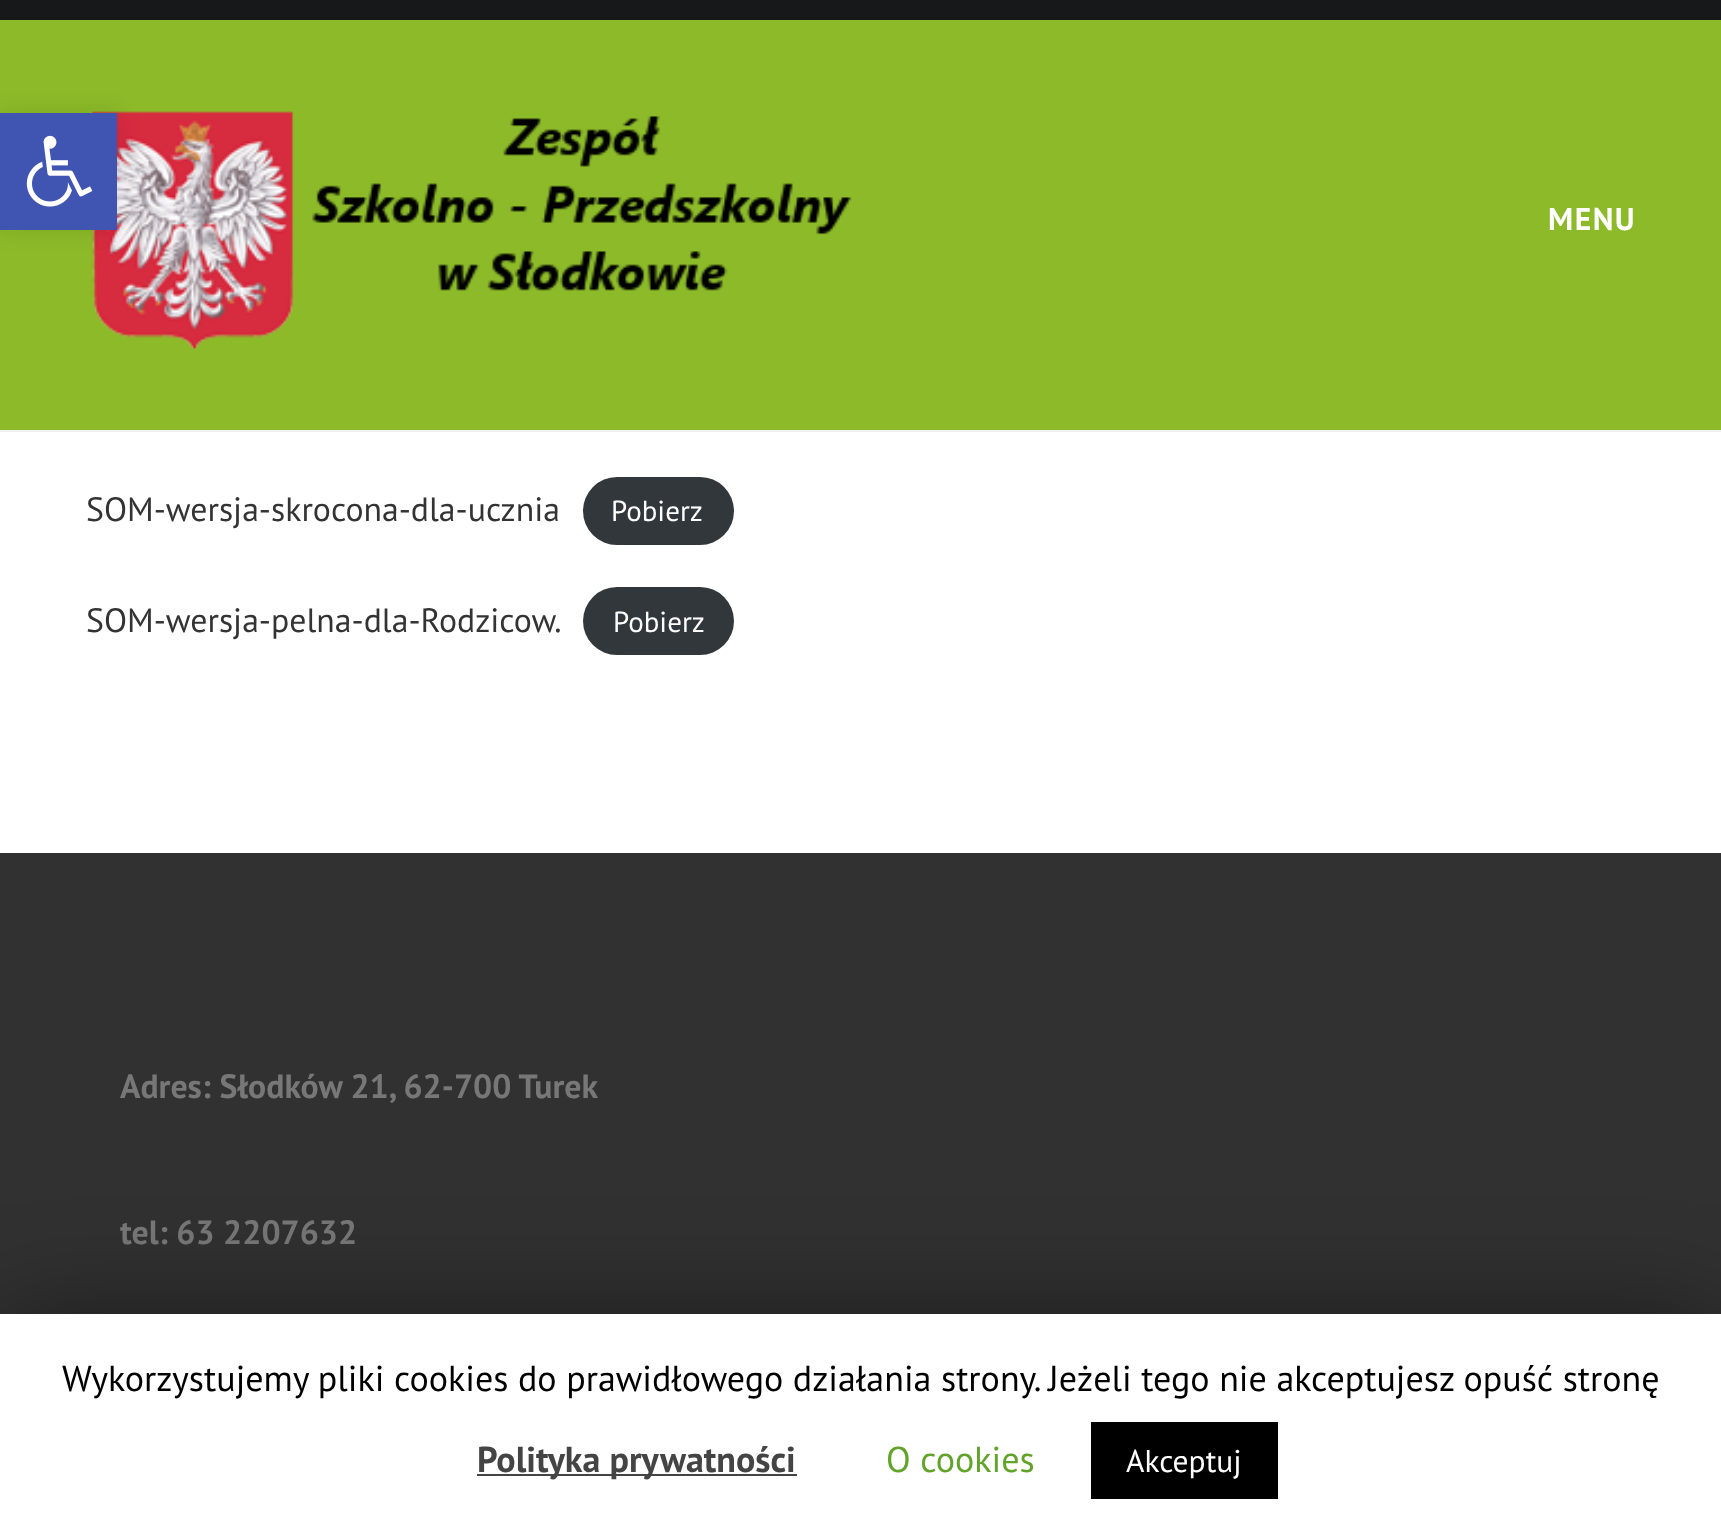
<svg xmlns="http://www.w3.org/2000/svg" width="1721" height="1538">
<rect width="100%" height="100%" fill="#313131"/>
<rect y="20" width="1721" height="410" fill="#8cba29"/>
<image x="91" y="111" width="761" height="238" href="media/2.png"/>
<rect y="113" width="117" height="117" fill="#0000001a" filter="blur(11px)"/>
<rect y="113" width="117" height="117" fill="#4054b2"/>
<image x="26" y="135" width="67" height="72" href="media/1.png"/>
<rect width="1721" height="20" fill="#161819"/>
<rect y="430" width="1721" height="2" fill="#f1f1f1"/>
<text x="1548" y="230" style="font-family:PT Sans;font-size:31.5px;font-weight:bold;letter-spacing:1.5px;fill:#fff">MENU</text>
<rect y="432" width="1721" height="421" fill="#fff"/>
<text x="86" y="521" style="font-family:PT Sans;font-size:33.75px;fill:#333">SOM-wersja-skrocona-dla-ucznia</text>
<rect x="583" y="477" width="151" height="68" rx="34" fill="#32373c"/>
<text x="611" y="521" style="font-family:PT Sans;font-size:29px;fill:#fff">Pobierz</text>
<text x="86" y="632" style="font-family:PT Sans;font-size:33.75px;fill:#333">SOM-wersja-pelna-dla-Rodzicow.</text>
<rect x="583" y="587" width="151" height="68" rx="34" fill="#32373c"/>
<text x="613" y="632" style="font-family:PT Sans;font-size:29px;fill:#fff">Pobierz</text>
<text x="120" y="1098" style="font-family:PT Sans;font-size:33.75px;font-weight:bold;fill:#777">Adres: Słodków 21, 62-700 Turek</text>
<text x="120" y="1244" style="font-family:PT Sans;font-size:33.75px;font-weight:bold;fill:#777">tel: 63 2207632</text>
<rect y="1325" width="1721" height="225" fill="#00000080" filter="blur(56px)"/>
<rect y="1314" width="1721" height="224" fill="#fff"/>
<text x="62" y="1391" style="font-family:PT Sans;font-size:36px;fill:#000">Wykorzystujemy pliki cookies do prawidłowego działania strony. Jeżeli tego nie akceptujesz opuść stronę</text>
<rect x="477" y="1474" width="320" height="2" fill="#444"/>
<text x="477" y="1472" style="font-family:PT Sans;font-size:36px;font-weight:bold;fill:#444">Polityka prywatności</text>
<text x="886" y="1472" style="font-family:PT Sans;font-size:36px;fill:#62a329">O cookies</text>
<rect x="1091" y="1422" width="187" height="77" fill="#000"/>
<text x="1126" y="1472" style="font-family:PT Sans;font-size:31.5px;fill:#fff">Akceptuj</text>
</svg>
